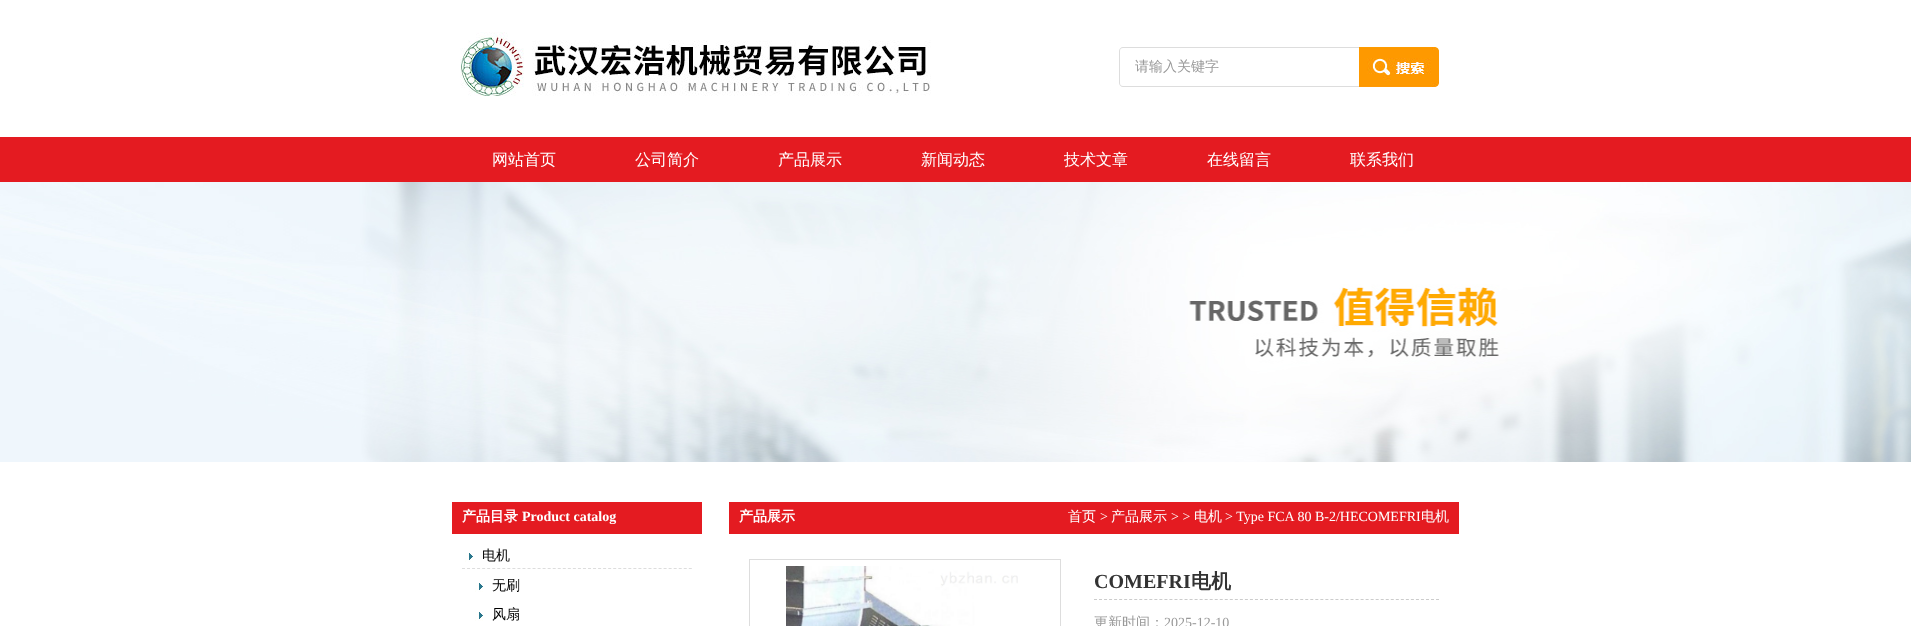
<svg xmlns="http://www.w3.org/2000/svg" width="1911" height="626">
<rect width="100%" height="100%" fill="#fff"/>
<image x="460" y="32" width="471" height="64" href="media/1.png"/>
<path d="M1123 47h236v40h-236c-2 0-4-2-4-4v-32c0-2 2-4 4-4zm0 1h236v38h-236c-2 0-3-1-3-3v-32c0-2 1-3 3-3z" fill="#ddd" fill-rule="evenodd"/>
<text x="1135" y="71" style="font-family:WenQuanYi Zen Hei;font-size:14px;font-weight:500;fill:#999">请输入关键字</text>
<image x="1359" y="47" width="80" height="40" href="media/2.png"/>
<rect y="137" width="1911" height="45" fill="#e41b21"/>
<text x="492" y="165" style="font-family:WenQuanYi Zen Hei;font-size:16px;font-weight:500;fill:#fff">网站首页</text>
<text x="635" y="165" style="font-family:WenQuanYi Zen Hei;font-size:16px;font-weight:500;fill:#fff">公司简介</text>
<text x="778" y="165" style="font-family:WenQuanYi Zen Hei;font-size:16px;font-weight:500;fill:#fff">产品展示</text>
<text x="921" y="165" style="font-family:WenQuanYi Zen Hei;font-size:16px;font-weight:500;fill:#fff">新闻动态</text>
<text x="1064" y="165" style="font-family:WenQuanYi Zen Hei;font-size:16px;font-weight:500;fill:#fff">技术文章</text>
<text x="1207" y="165" style="font-family:WenQuanYi Zen Hei;font-size:16px;font-weight:500;fill:#fff">在线留言</text>
<text x="1350" y="165" style="font-family:WenQuanYi Zen Hei;font-size:16px;font-weight:500;fill:#fff">联系我们</text>
<image x="0" y="182" width="1911" height="280" href="media/3.png"/>
<rect x="452" y="502" width="250" height="32" fill="#e41b21"/>
<text x="462" y="521" style="font-family:WenQuanYi Zen Hei;font-size:14px;font-weight:bold;fill:#fff">产品目录</text>
<text x="522" y="521" style="font-family:Liberation Serif;font-size:14px;font-weight:bold;fill:#fff">Product catalog</text>
<image x="465" y="553" width="8" height="9" href="media/4.png"/>
<path d="M462 568.5h230" fill="none" stroke="#ddd" stroke-dasharray="3 2.04"/>
<text x="482" y="560" style="font-family:WenQuanYi Zen Hei;font-size:14px;font-weight:500;fill:#000">电机</text>
<image x="475" y="583" width="8" height="9" href="media/4.png"/>
<text x="492" y="590" style="font-family:WenQuanYi Zen Hei;font-size:14px;font-weight:500;fill:#000">无刷</text>
<image x="475" y="612" width="8" height="9" href="media/4.png"/>
<text x="492" y="619" style="font-family:WenQuanYi Zen Hei;font-size:14px;font-weight:500;fill:#000">风扇</text>
<rect x="729" y="502" width="730" height="32" fill="#e41b21"/>
<text x="739" y="521" style="font-family:WenQuanYi Zen Hei;font-size:14px;font-weight:bold;fill:#fff">产品展示</text>
<text x="1068" y="521" style="font-family:WenQuanYi Zen Hei;font-size:14px;font-weight:500;fill:#fff">首页</text>
<text x="1100" y="521" style="font-family:Liberation Serif;font-size:14px;fill:#fff">&gt;</text>
<text x="1111" y="521" style="font-family:WenQuanYi Zen Hei;font-size:14px;font-weight:500;fill:#fff">产品展示</text>
<text x="1171" y="521" style="font-family:Liberation Serif;font-size:14px;fill:#fff">&gt; &gt;</text>
<text x="1194" y="521" style="font-family:WenQuanYi Zen Hei;font-size:14px;font-weight:500;fill:#fff">电机</text>
<text x="1225" y="521" style="font-family:Liberation Serif;font-size:14px;fill:#fff">&gt; Type FCA 80 B-2/HECOMEFRI</text>
<text x="1421" y="521" style="font-family:WenQuanYi Zen Hei;font-size:14px;font-weight:500;fill:#fff">电机</text>
<rect x="749.5" y="559.5" width="311" height="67" fill="none" stroke="#ddd"/>
<image x="786" y="566" width="232" height="60" href="media/5.png"/>
<path d="M1094 599.5h345" fill="none" stroke="#ccc" stroke-dasharray="3 2.03"/>
<text x="1094" y="588" style="font-family:Liberation Serif;font-size:20px;font-weight:bold;fill:#333">COMEFRI</text>
<text x="1191" y="588" style="font-family:WenQuanYi Zen Hei;font-size:20px;font-weight:bold;fill:#333">电机</text>
<text x="1094" y="627" style="font-family:WenQuanYi Zen Hei;font-size:14px;font-weight:500;fill:#999">更新时间：</text>
<text x="1164" y="627" style="font-family:Liberation Serif;font-size:14px;fill:#999">2025-12-10</text>
</svg>
